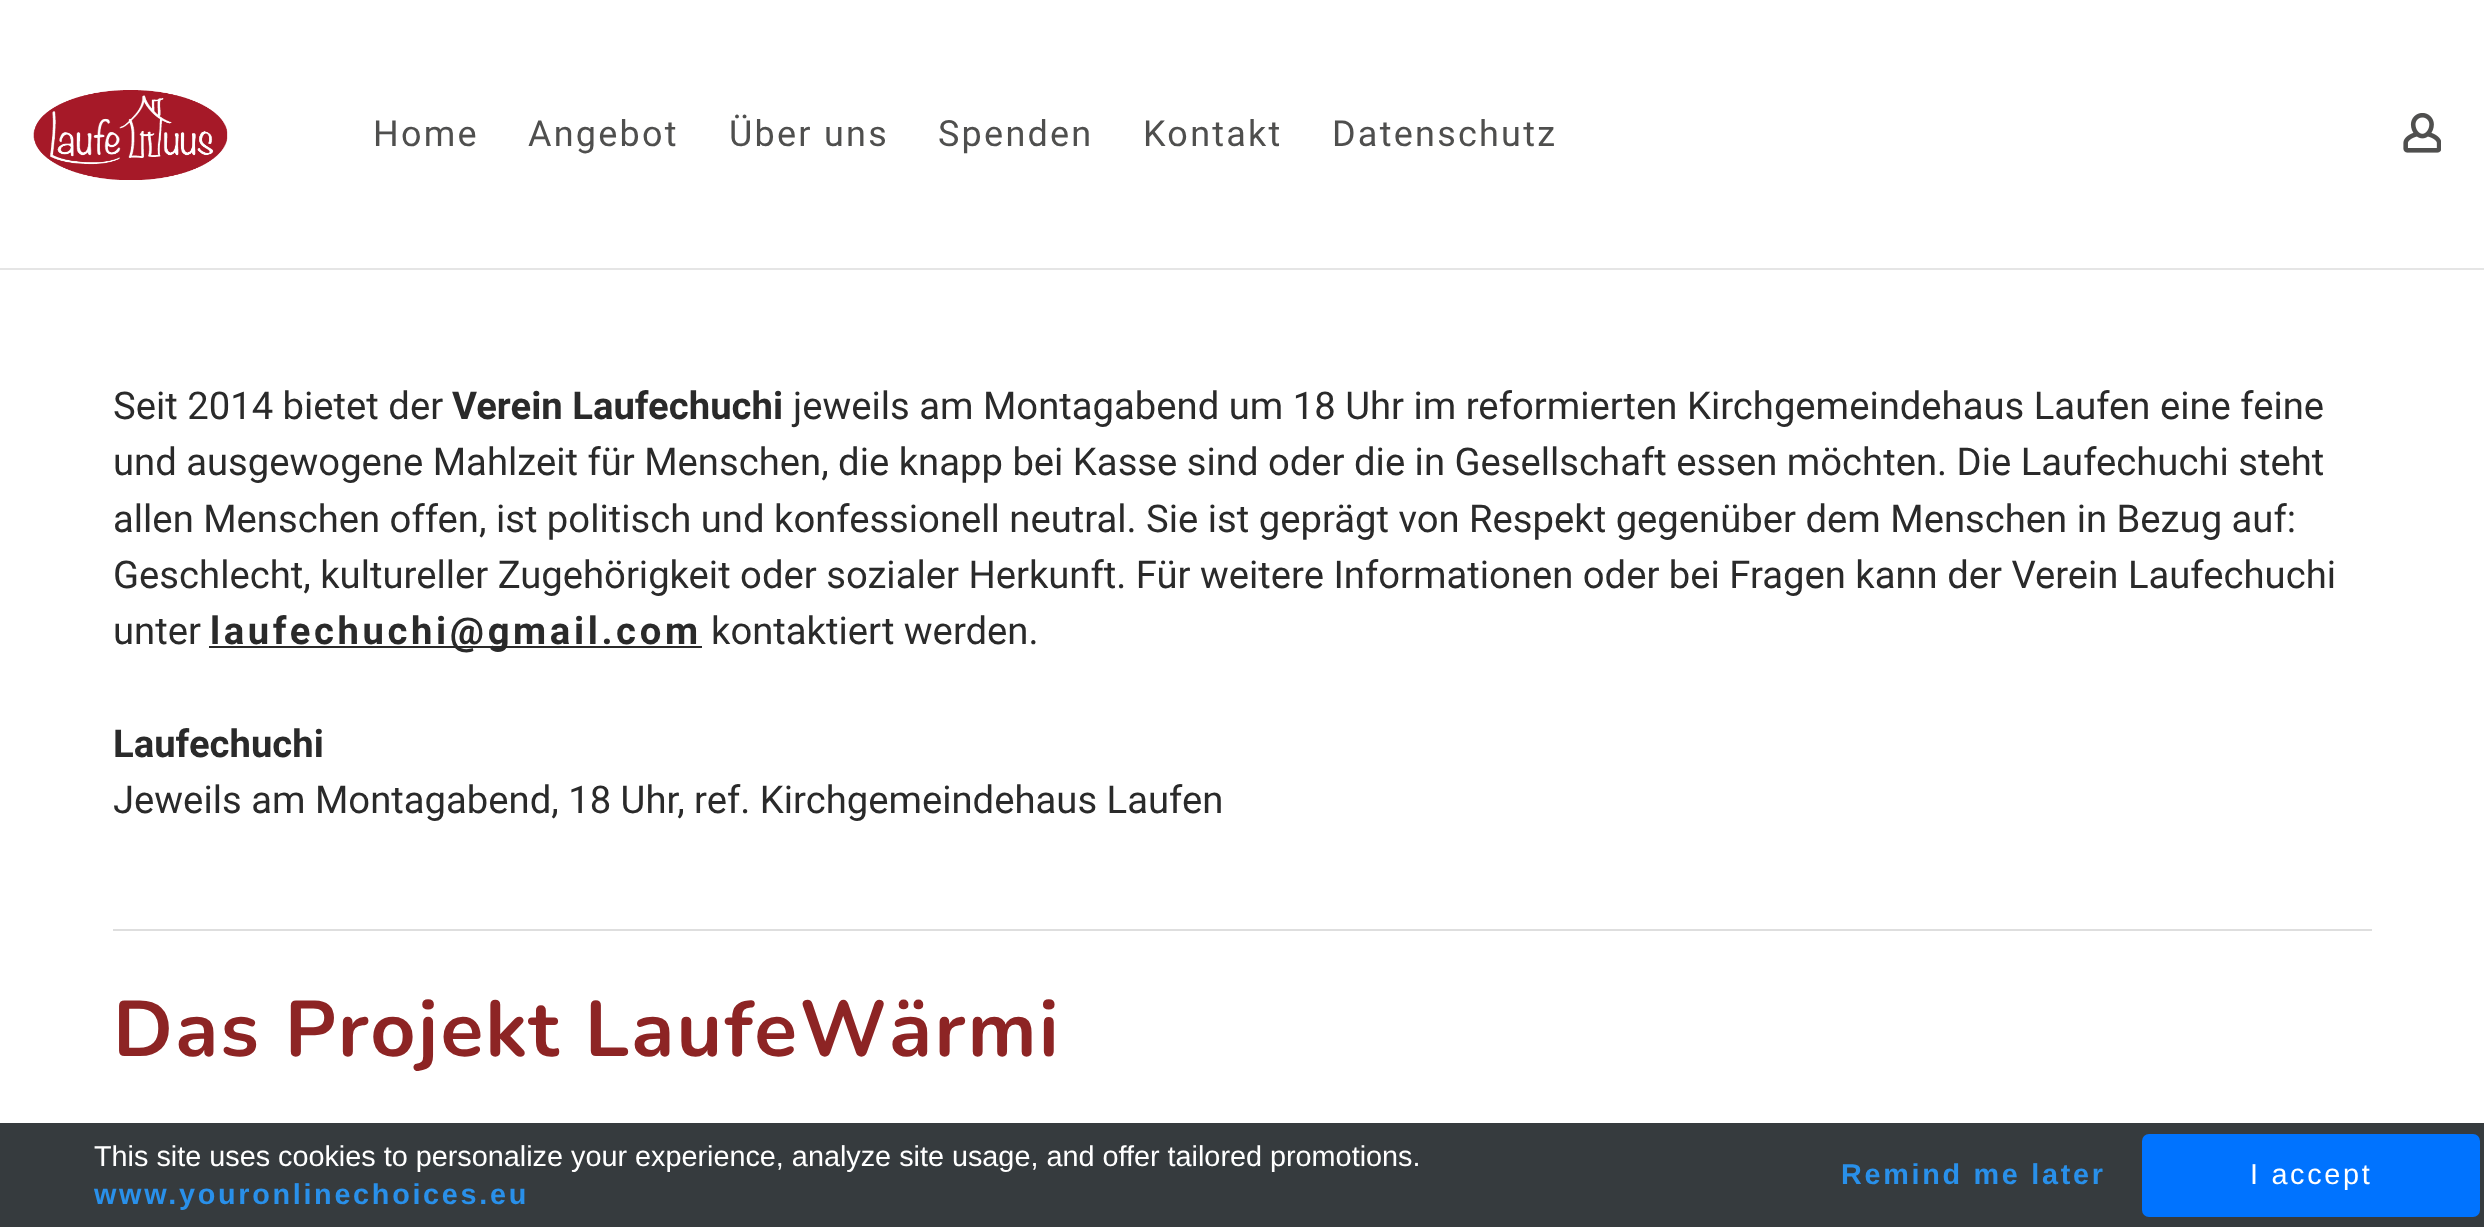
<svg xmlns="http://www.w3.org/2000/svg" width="2484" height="1227">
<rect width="100%" height="100%" fill="#fff"/>
<image x="33" y="90" width="195" height="90" href="media/1.png"/>
<text x="373" y="146" style="font-family:Roboto;font-size:36px;letter-spacing:2.25px;fill:#4f4f4e">Home</text>
<text x="528" y="146" style="font-family:Roboto;font-size:36px;letter-spacing:2.25px;fill:#4f4f4e">Angebot</text>
<text x="729" y="146" style="font-family:Roboto;font-size:36px;letter-spacing:2.25px;fill:#4f4f4e">Über uns</text>
<text x="938" y="146" style="font-family:Roboto;font-size:36px;letter-spacing:2.25px;fill:#4f4f4e">Spenden</text>
<text x="1143" y="146" style="font-family:Roboto;font-size:36px;letter-spacing:2.25px;fill:#4f4f4e">Kontakt</text>
<text x="1332" y="146" style="font-family:Roboto;font-size:36px;letter-spacing:2.25px;fill:#4f4f4e">Datenschutz</text>
<image x="2403" y="113" width="38" height="40" href="media/2.png"/>
<rect y="268" width="2484" height="2" fill="#e5e5e5"/>
<text x="113" y="419" style="font-family:Roboto;font-size:38.25px;fill:#2a2a2a">Seit 2014 bietet der</text>
<text x="452" y="419" style="font-family:Roboto;font-size:38.25px;font-weight:bold;fill:#2a2a2a">Verein Laufechuchi</text>
<text x="793" y="419" style="font-family:Roboto;font-size:38.25px;fill:#2a2a2a">jeweils am Montagabend um 18 Uhr im reformierten Kirchgemeindehaus Laufen eine feine</text>
<text x="113" y="475" style="font-family:Roboto;font-size:38.25px;fill:#2a2a2a">und ausgewogene Mahlzeit für Menschen, die knapp bei Kasse sind oder die in Gesellschaft essen möchten. Die Laufechuchi steht</text>
<text x="113" y="532" style="font-family:Roboto;font-size:38.25px;fill:#2a2a2a">allen Menschen offen, ist politisch und konfessionell neutral. Sie ist geprägt von Respekt gegenüber dem Menschen in Bezug auf:</text>
<text x="113" y="588" style="font-family:Roboto;font-size:38.25px;fill:#2a2a2a">Geschlecht, kultureller Zugehörigkeit oder sozialer Herkunft. Für weitere Informationen oder bei Fragen kann der Verein Laufechuchi</text>
<text x="113" y="644" style="font-family:Roboto;font-size:38.25px;fill:#2a2a2a">unter</text>
<rect x="209" y="646" width="493" height="2" fill="#2a2a2a"/>
<text x="210" y="644" style="font-family:Roboto;font-size:38.25px;font-weight:bold;letter-spacing:3.6px;fill:#2a2a2a">laufechuchi@gmail.com</text>
<text x="711" y="644" style="font-family:Roboto;font-size:38.25px;fill:#2a2a2a">kontaktiert werden.</text>
<text x="113" y="757" style="font-family:Roboto;font-size:38.25px;font-weight:bold;fill:#2a2a2a">Laufechuchi</text>
<text x="113" y="813" style="font-family:Roboto;font-size:38.25px;fill:#2a2a2a">Jeweils am Montagabend, 18 Uhr, ref. Kirchgemeindehaus Laufen</text>
<rect x="113" y="929" width="2259" height="2" fill="#dedede"/>
<text x="113" y="1056" style="font-family:Nunito;font-size:78.75px;font-weight:200;letter-spacing:2.25px;fill:#8d2424">Das Projekt LaufeWärmi</text>
<rect y="1123" width="2484" height="104" fill="#363b3e"/>
<text x="94" y="1166" style="font-family:Liberation Sans;font-size:28.8px;fill:#fff">This site uses cookies to personalize your experience, analyze site usage, and offer tailored promotions.</text>
<text x="94" y="1204" style="font-family:Liberation Sans;font-size:28.8px;font-weight:bold;letter-spacing:2.7px;fill:#2990ea">www.youronlinechoices.eu</text>
<text x="1841" y="1184" style="font-family:Liberation Sans;font-size:28.8px;font-weight:bold;letter-spacing:2.7px;fill:#2990ea">Remind me later</text>
<rect x="2142" y="1134" width="338" height="83" rx="7" fill="#0073ff"/>
<text x="2250" y="1184" style="font-family:Liberation Sans;font-size:28.8px;letter-spacing:2.7px;fill:#fff">I accept</text>
</svg>
